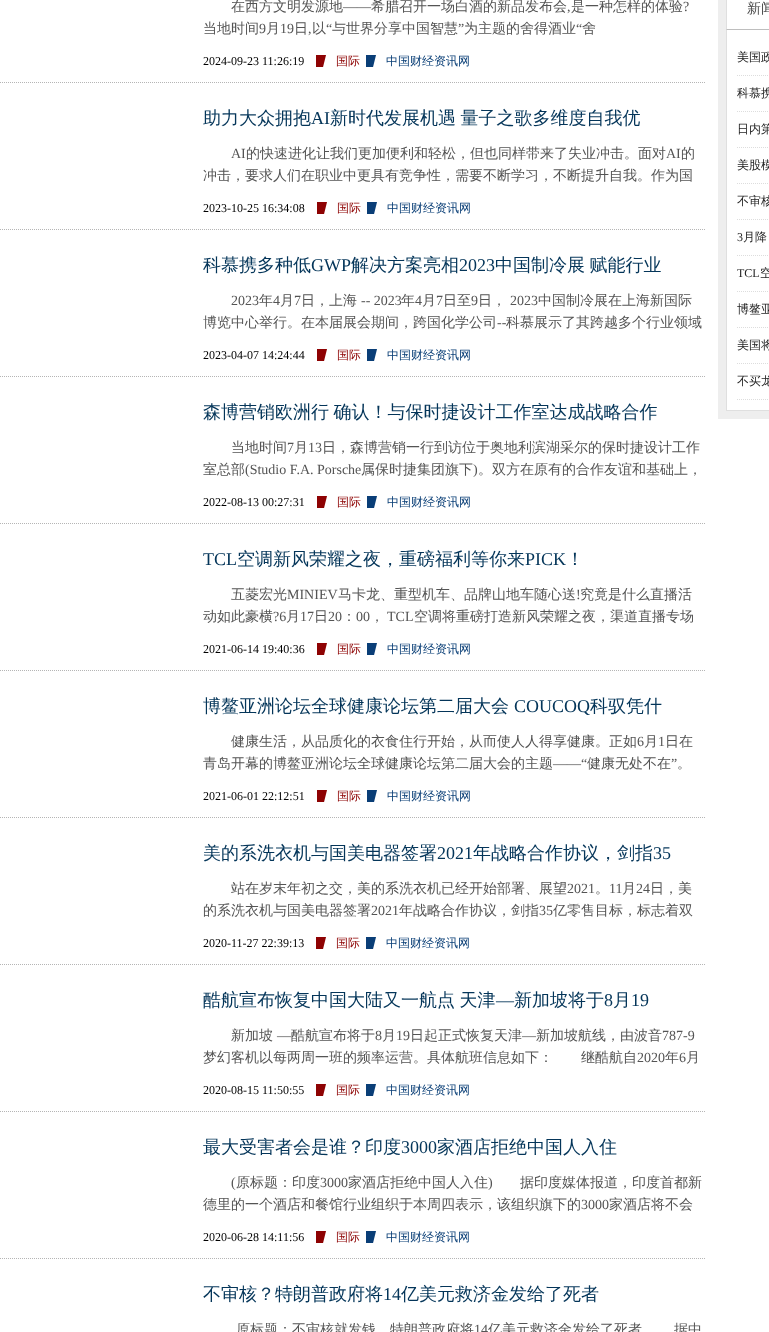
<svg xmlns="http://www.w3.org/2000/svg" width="769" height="1332">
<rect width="100%" height="100%" fill="#fff"/>
<path d="M0 82.5h705" fill="none" stroke="#b5b5b5" stroke-dasharray="1 1"/>
<text x="231" y="11" style="font-family:WenQuanYi Zen Hei;font-size:14px;font-weight:500;fill:#545454">在西方文明发源地</text>
<text x="343" y="11" style="font-family:Liberation Serif;font-size:14px;fill:#545454">——</text>
<text x="371" y="11" style="font-family:WenQuanYi Zen Hei;font-size:14px;font-weight:500;fill:#545454">希腊召开一场白酒的新品发布会</text>
<text x="571" y="11" style="font-family:WenQuanYi Zen Hei;font-size:14px;font-weight:500;fill:#545454">是一种怎样的体验</text>
<text x="683" y="11" style="font-family:Liberation Serif;font-size:14px;fill:#545454">?</text>
<text x="567" y="11" style="font-family:Liberation Serif;font-size:14px;fill:#545454">,</text>
<text x="203" y="33" style="font-family:WenQuanYi Zen Hei;font-size:14px;font-weight:500;fill:#545454">当地时间</text>
<text x="259" y="33" style="font-family:Liberation Serif;font-size:14px;fill:#545454">9</text>
<text x="266" y="33" style="font-family:WenQuanYi Zen Hei;font-size:14px;font-weight:500;fill:#545454">月</text>
<text x="280" y="33" style="font-family:Liberation Serif;font-size:14px;fill:#545454">19</text>
<text x="294" y="33" style="font-family:WenQuanYi Zen Hei;font-size:14px;font-weight:500;fill:#545454">日</text>
<text x="312" y="33" style="font-family:WenQuanYi Zen Hei;font-size:14px;font-weight:500;fill:#545454">以</text>
<text x="326" y="33" style="font-family:Liberation Serif;font-size:14px;fill:#545454">“</text>
<text x="332" y="33" style="font-family:WenQuanYi Zen Hei;font-size:14px;font-weight:500;fill:#545454">与世界分享中国智慧</text>
<text x="458" y="33" style="font-family:Liberation Serif;font-size:14px;fill:#545454">”</text>
<text x="464" y="33" style="font-family:WenQuanYi Zen Hei;font-size:14px;font-weight:500;fill:#545454">为主题的舍得酒业</text>
<text x="576" y="33" style="font-family:Liberation Serif;font-size:14px;fill:#545454">“</text>
<text x="582" y="33" style="font-family:WenQuanYi Zen Hei;font-size:14px;font-weight:500;fill:#545454">舍</text>
<text x="308" y="33" style="font-family:Liberation Serif;font-size:14px;fill:#545454">,</text>
<text x="203" y="65" style="font-family:Liberation Serif;font-size:12px;fill:#000">2024-09-23 11:26:19</text>
<image x="316" y="55" width="10" height="12" href="media/1.png"/>
<text x="336" y="65" style="font-family:WenQuanYi Zen Hei;font-size:12px;font-weight:500;fill:#8d0202">国际</text>
<image x="366" y="55" width="10" height="12" href="media/2.png"/>
<text x="386" y="65" style="font-family:WenQuanYi Zen Hei;font-size:12px;font-weight:500;fill:#093e76">中国财经资讯网</text>
<path d="M0 229.5h705" fill="none" stroke="#b5b5b5" stroke-dasharray="1 1"/>
<text x="203" y="124" style="font-family:WenQuanYi Zen Hei;font-size:18px;font-weight:500;fill:#043559">助力大众拥抱</text>
<text x="311" y="124" style="font-family:Liberation Serif;font-size:18px;fill:#043559">AI</text>
<text x="330" y="124" word-spacing="-1" style="font-family:WenQuanYi Zen Hei;font-size:18px;font-weight:500;fill:#043559">新时代发展机遇 量子之歌多维度自我优</text>
<text x="231" y="158" style="font-family:Liberation Serif;font-size:14px;fill:#545454">AI</text>
<text x="246" y="158" style="font-family:WenQuanYi Zen Hei;font-size:14px;font-weight:500;fill:#545454">的快速进化让我们更加便利和轻松，但也同样带来了失业冲击。面对</text>
<text x="666" y="158" style="font-family:Liberation Serif;font-size:14px;fill:#545454">AI</text>
<text x="681" y="158" style="font-family:WenQuanYi Zen Hei;font-size:14px;font-weight:500;fill:#545454">的</text>
<text x="203" y="180" style="font-family:WenQuanYi Zen Hei;font-size:14px;font-weight:500;fill:#545454">冲击，要求人们在职业中更具有竞争性，需要不断学习，不断提升自我。作为国</text>
<text x="203" y="212" style="font-family:Liberation Serif;font-size:12px;fill:#000">2023-10-25 16:34:08</text>
<image x="317" y="202" width="10" height="12" href="media/1.png"/>
<text x="337" y="212" style="font-family:WenQuanYi Zen Hei;font-size:12px;font-weight:500;fill:#8d0202">国际</text>
<image x="367" y="202" width="10" height="12" href="media/2.png"/>
<text x="387" y="212" style="font-family:WenQuanYi Zen Hei;font-size:12px;font-weight:500;fill:#093e76">中国财经资讯网</text>
<path d="M0 376.5h705" fill="none" stroke="#b5b5b5" stroke-dasharray="1 1"/>
<text x="203" y="271" style="font-family:WenQuanYi Zen Hei;font-size:18px;font-weight:500;fill:#043559">科慕携多种低</text>
<text x="311" y="271" style="font-family:Liberation Serif;font-size:18px;fill:#043559">GWP</text>
<text x="351" y="271" style="font-family:WenQuanYi Zen Hei;font-size:18px;font-weight:500;fill:#043559">解决方案亮相</text>
<text x="459" y="271" style="font-family:Liberation Serif;font-size:18px;fill:#043559">2023</text>
<text x="495" y="271" word-spacing="-1" style="font-family:WenQuanYi Zen Hei;font-size:18px;font-weight:500;fill:#043559">中国制冷展 赋能行业</text>
<text x="231" y="305" style="font-family:Liberation Serif;font-size:14px;fill:#545454">2023</text>
<text x="259" y="305" style="font-family:WenQuanYi Zen Hei;font-size:14px;font-weight:500;fill:#545454">年</text>
<text x="273" y="305" style="font-family:Liberation Serif;font-size:14px;fill:#545454">4</text>
<text x="280" y="305" style="font-family:WenQuanYi Zen Hei;font-size:14px;font-weight:500;fill:#545454">月</text>
<text x="294" y="305" style="font-family:Liberation Serif;font-size:14px;fill:#545454">7</text>
<text x="301" y="305" style="font-family:WenQuanYi Zen Hei;font-size:14px;font-weight:500;fill:#545454">日，上海</text>
<text x="361" y="305" style="font-family:Liberation Serif;font-size:14px;fill:#545454">-- 2023</text>
<text x="401" y="305" style="font-family:WenQuanYi Zen Hei;font-size:14px;font-weight:500;fill:#545454">年</text>
<text x="415" y="305" style="font-family:Liberation Serif;font-size:14px;fill:#545454">4</text>
<text x="422" y="305" style="font-family:WenQuanYi Zen Hei;font-size:14px;font-weight:500;fill:#545454">月</text>
<text x="436" y="305" style="font-family:Liberation Serif;font-size:14px;fill:#545454">7</text>
<text x="443" y="305" style="font-family:WenQuanYi Zen Hei;font-size:14px;font-weight:500;fill:#545454">日至</text>
<text x="471" y="305" style="font-family:Liberation Serif;font-size:14px;fill:#545454">9</text>
<text x="478" y="305" style="font-family:WenQuanYi Zen Hei;font-size:14px;font-weight:500;fill:#545454">日，</text>
<text x="510" y="305" style="font-family:Liberation Serif;font-size:14px;fill:#545454">2023</text>
<text x="538" y="305" style="font-family:WenQuanYi Zen Hei;font-size:14px;font-weight:500;fill:#545454">中国制冷展在上海新国际</text>
<text x="203" y="327" style="font-family:WenQuanYi Zen Hei;font-size:14px;font-weight:500;fill:#545454">博览中心举行。在本届展会期间，跨国化学公司</text>
<text x="497" y="327" style="font-family:Liberation Serif;font-size:14px;fill:#545454">--</text>
<text x="506" y="327" style="font-family:WenQuanYi Zen Hei;font-size:14px;font-weight:500;fill:#545454">科慕展示了其跨越多个行业领域</text>
<text x="203" y="359" style="font-family:Liberation Serif;font-size:12px;fill:#000">2023-04-07 14:24:44</text>
<image x="317" y="349" width="10" height="12" href="media/1.png"/>
<text x="337" y="359" style="font-family:WenQuanYi Zen Hei;font-size:12px;font-weight:500;fill:#8d0202">国际</text>
<image x="367" y="349" width="10" height="12" href="media/2.png"/>
<text x="387" y="359" style="font-family:WenQuanYi Zen Hei;font-size:12px;font-weight:500;fill:#093e76">中国财经资讯网</text>
<path d="M0 523.5h705" fill="none" stroke="#b5b5b5" stroke-dasharray="1 1"/>
<text x="203" y="418" word-spacing="-1" style="font-family:WenQuanYi Zen Hei;font-size:18px;font-weight:500;fill:#043559">森博营销欧洲行 确认！与保时捷设计工作室达成战略合作</text>
<text x="231" y="452" style="font-family:WenQuanYi Zen Hei;font-size:14px;font-weight:500;fill:#545454">当地时间</text>
<text x="287" y="452" style="font-family:Liberation Serif;font-size:14px;fill:#545454">7</text>
<text x="294" y="452" style="font-family:WenQuanYi Zen Hei;font-size:14px;font-weight:500;fill:#545454">月</text>
<text x="308" y="452" style="font-family:Liberation Serif;font-size:14px;fill:#545454">13</text>
<text x="322" y="452" style="font-family:WenQuanYi Zen Hei;font-size:14px;font-weight:500;fill:#545454">日，森博营销一行到访位于奥地利滨湖采尔的保时捷设计工作</text>
<text x="203" y="474" style="font-family:WenQuanYi Zen Hei;font-size:14px;font-weight:500;fill:#545454">室总部</text>
<text x="245" y="474" style="font-family:Liberation Serif;font-size:14px;fill:#545454">(Studio F.A. Porsche</text>
<text x="361" y="474" style="font-family:WenQuanYi Zen Hei;font-size:14px;font-weight:500;fill:#545454">属保时捷集团旗下</text>
<text x="473" y="474" style="font-family:Liberation Serif;font-size:14px;fill:#545454">)</text>
<text x="478" y="474" style="font-family:WenQuanYi Zen Hei;font-size:14px;font-weight:500;fill:#545454">。双方在原有的合作友谊和基础上，</text>
<text x="203" y="506" style="font-family:Liberation Serif;font-size:12px;fill:#000">2022-08-13 00:27:31</text>
<image x="317" y="496" width="10" height="12" href="media/1.png"/>
<text x="337" y="506" style="font-family:WenQuanYi Zen Hei;font-size:12px;font-weight:500;fill:#8d0202">国际</text>
<image x="367" y="496" width="10" height="12" href="media/2.png"/>
<text x="387" y="506" style="font-family:WenQuanYi Zen Hei;font-size:12px;font-weight:500;fill:#093e76">中国财经资讯网</text>
<path d="M0 670.5h705" fill="none" stroke="#b5b5b5" stroke-dasharray="1 1"/>
<text x="203" y="565" style="font-family:Liberation Serif;font-size:18px;fill:#043559">TCL</text>
<text x="237" y="565" style="font-family:WenQuanYi Zen Hei;font-size:18px;font-weight:500;fill:#043559">空调新风荣耀之夜，重磅福利等你来</text>
<text x="525" y="565" style="font-family:Liberation Serif;font-size:18px;fill:#043559">PICK</text>
<text x="566" y="565" style="font-family:WenQuanYi Zen Hei;font-size:18px;font-weight:500;fill:#043559">！</text>
<text x="231" y="599" style="font-family:WenQuanYi Zen Hei;font-size:14px;font-weight:500;fill:#545454">五菱宏光</text>
<text x="287" y="599" style="font-family:Liberation Serif;font-size:14px;fill:#545454">MINIEV</text>
<text x="338" y="599" style="font-family:WenQuanYi Zen Hei;font-size:14px;font-weight:500;fill:#545454">马卡龙、重型机车、品牌山地车随心送</text>
<text x="576" y="599" style="font-family:Liberation Serif;font-size:14px;fill:#545454">!</text>
<text x="580" y="599" style="font-family:WenQuanYi Zen Hei;font-size:14px;font-weight:500;fill:#545454">究竟是什么直播活</text>
<text x="203" y="621" style="font-family:WenQuanYi Zen Hei;font-size:14px;font-weight:500;fill:#545454">动如此豪横</text>
<text x="273" y="621" style="font-family:Liberation Serif;font-size:14px;fill:#545454">?6</text>
<text x="286" y="621" style="font-family:WenQuanYi Zen Hei;font-size:14px;font-weight:500;fill:#545454">月</text>
<text x="300" y="621" style="font-family:Liberation Serif;font-size:14px;fill:#545454">17</text>
<text x="314" y="621" style="font-family:WenQuanYi Zen Hei;font-size:14px;font-weight:500;fill:#545454">日</text>
<text x="328" y="621" style="font-family:Liberation Serif;font-size:14px;fill:#545454">20</text>
<text x="342" y="621" style="font-family:WenQuanYi Zen Hei;font-size:14px;font-weight:500;fill:#545454">：</text>
<text x="356" y="621" style="font-family:Liberation Serif;font-size:14px;fill:#545454">00</text>
<text x="370" y="621" style="font-family:WenQuanYi Zen Hei;font-size:14px;font-weight:500;fill:#545454">，</text>
<text x="387" y="621" style="font-family:Liberation Serif;font-size:14px;fill:#545454">TCL</text>
<text x="414" y="621" style="font-family:WenQuanYi Zen Hei;font-size:14px;font-weight:500;fill:#545454">空调将重磅打造新风荣耀之夜，渠道直播专场</text>
<text x="203" y="653" style="font-family:Liberation Serif;font-size:12px;fill:#000">2021-06-14 19:40:36</text>
<image x="317" y="643" width="10" height="12" href="media/1.png"/>
<text x="337" y="653" style="font-family:WenQuanYi Zen Hei;font-size:12px;font-weight:500;fill:#8d0202">国际</text>
<image x="367" y="643" width="10" height="12" href="media/2.png"/>
<text x="387" y="653" style="font-family:WenQuanYi Zen Hei;font-size:12px;font-weight:500;fill:#093e76">中国财经资讯网</text>
<path d="M0 817.5h705" fill="none" stroke="#b5b5b5" stroke-dasharray="1 1"/>
<text x="203" y="712" style="font-family:WenQuanYi Zen Hei;font-size:18px;font-weight:500;fill:#043559">博鳌亚洲论坛全球健康论坛第二届大会</text>
<text x="514" y="712" style="font-family:Liberation Serif;font-size:18px;fill:#043559">COUCOQ</text>
<text x="590" y="712" style="font-family:WenQuanYi Zen Hei;font-size:18px;font-weight:500;fill:#043559">科驭凭什</text>
<text x="231" y="746" style="font-family:WenQuanYi Zen Hei;font-size:14px;font-weight:500;fill:#545454">健康生活，从品质化的衣食住行开始，从而使人人得享健康。正如</text>
<text x="637" y="746" style="font-family:Liberation Serif;font-size:14px;fill:#545454">6</text>
<text x="644" y="746" style="font-family:WenQuanYi Zen Hei;font-size:14px;font-weight:500;fill:#545454">月</text>
<text x="658" y="746" style="font-family:Liberation Serif;font-size:14px;fill:#545454">1</text>
<text x="665" y="746" style="font-family:WenQuanYi Zen Hei;font-size:14px;font-weight:500;fill:#545454">日在</text>
<text x="203" y="768" style="font-family:WenQuanYi Zen Hei;font-size:14px;font-weight:500;fill:#545454">青岛开幕的博鳌亚洲论坛全球健康论坛第二届大会的主题</text>
<text x="553" y="768" style="font-family:Liberation Serif;font-size:14px;fill:#545454">——“</text>
<text x="587" y="768" style="font-family:WenQuanYi Zen Hei;font-size:14px;font-weight:500;fill:#545454">健康无处不在</text>
<text x="671" y="768" style="font-family:Liberation Serif;font-size:14px;fill:#545454">”</text>
<text x="677" y="768" style="font-family:WenQuanYi Zen Hei;font-size:14px;font-weight:500;fill:#545454">。</text>
<text x="203" y="800" style="font-family:Liberation Serif;font-size:12px;fill:#000">2021-06-01 22:12:51</text>
<image x="317" y="790" width="10" height="12" href="media/1.png"/>
<text x="337" y="800" style="font-family:WenQuanYi Zen Hei;font-size:12px;font-weight:500;fill:#8d0202">国际</text>
<image x="367" y="790" width="10" height="12" href="media/2.png"/>
<text x="387" y="800" style="font-family:WenQuanYi Zen Hei;font-size:12px;font-weight:500;fill:#093e76">中国财经资讯网</text>
<path d="M0 964.5h705" fill="none" stroke="#b5b5b5" stroke-dasharray="1 1"/>
<text x="203" y="859" style="font-family:WenQuanYi Zen Hei;font-size:18px;font-weight:500;fill:#043559">美的系洗衣机与国美电器签署</text>
<text x="437" y="859" style="font-family:Liberation Serif;font-size:18px;fill:#043559">2021</text>
<text x="473" y="859" style="font-family:WenQuanYi Zen Hei;font-size:18px;font-weight:500;fill:#043559">年战略合作协议，剑指</text>
<text x="653" y="859" style="font-family:Liberation Serif;font-size:18px;fill:#043559">35</text>
<text x="231" y="893" style="font-family:WenQuanYi Zen Hei;font-size:14px;font-weight:500;fill:#545454">站在岁末年初之交，美的系洗衣机已经开始部署、展望</text>
<text x="567" y="893" style="font-family:Liberation Serif;font-size:14px;fill:#545454">2021</text>
<text x="595" y="893" style="font-family:WenQuanYi Zen Hei;font-size:14px;font-weight:500;fill:#545454">。</text>
<text x="609" y="893" style="font-family:Liberation Serif;font-size:14px;fill:#545454">11</text>
<text x="622" y="893" style="font-family:WenQuanYi Zen Hei;font-size:14px;font-weight:500;fill:#545454">月</text>
<text x="636" y="893" style="font-family:Liberation Serif;font-size:14px;fill:#545454">24</text>
<text x="650" y="893" style="font-family:WenQuanYi Zen Hei;font-size:14px;font-weight:500;fill:#545454">日，美</text>
<text x="203" y="915" style="font-family:WenQuanYi Zen Hei;font-size:14px;font-weight:500;fill:#545454">的系洗衣机与国美电器签署</text>
<text x="371" y="915" style="font-family:Liberation Serif;font-size:14px;fill:#545454">2021</text>
<text x="399" y="915" style="font-family:WenQuanYi Zen Hei;font-size:14px;font-weight:500;fill:#545454">年战略合作协议，剑指</text>
<text x="539" y="915" style="font-family:Liberation Serif;font-size:14px;fill:#545454">35</text>
<text x="553" y="915" style="font-family:WenQuanYi Zen Hei;font-size:14px;font-weight:500;fill:#545454">亿零售目标，标志着双</text>
<text x="203" y="947" style="font-family:Liberation Serif;font-size:12px;fill:#000">2020-11-27 22:39:13</text>
<image x="316" y="937" width="10" height="12" href="media/1.png"/>
<text x="336" y="947" style="font-family:WenQuanYi Zen Hei;font-size:12px;font-weight:500;fill:#8d0202">国际</text>
<image x="366" y="937" width="10" height="12" href="media/2.png"/>
<text x="386" y="947" style="font-family:WenQuanYi Zen Hei;font-size:12px;font-weight:500;fill:#093e76">中国财经资讯网</text>
<path d="M0 1111.5h705" fill="none" stroke="#b5b5b5" stroke-dasharray="1 1"/>
<text x="203" y="1006" word-spacing="-1" style="font-family:WenQuanYi Zen Hei;font-size:18px;font-weight:500;fill:#043559">酷航宣布恢复中国大陆又一航点 天津</text>
<text x="496" y="1006" style="font-family:Liberation Serif;font-size:18px;fill:#043559">—</text>
<text x="514" y="1006" style="font-family:WenQuanYi Zen Hei;font-size:18px;font-weight:500;fill:#043559">新加坡将于</text>
<text x="604" y="1006" style="font-family:Liberation Serif;font-size:18px;fill:#043559">8</text>
<text x="613" y="1006" style="font-family:WenQuanYi Zen Hei;font-size:18px;font-weight:500;fill:#043559">月</text>
<text x="631" y="1006" style="font-family:Liberation Serif;font-size:18px;fill:#043559">19</text>
<text x="231" y="1040" style="font-family:WenQuanYi Zen Hei;font-size:14px;font-weight:500;fill:#545454">新加坡</text>
<text x="277" y="1040" style="font-family:Liberation Serif;font-size:14px;fill:#545454">—</text>
<text x="291" y="1040" style="font-family:WenQuanYi Zen Hei;font-size:14px;font-weight:500;fill:#545454">酷航宣布将于</text>
<text x="375" y="1040" style="font-family:Liberation Serif;font-size:14px;fill:#545454">8</text>
<text x="382" y="1040" style="font-family:WenQuanYi Zen Hei;font-size:14px;font-weight:500;fill:#545454">月</text>
<text x="396" y="1040" style="font-family:Liberation Serif;font-size:14px;fill:#545454">19</text>
<text x="410" y="1040" style="font-family:WenQuanYi Zen Hei;font-size:14px;font-weight:500;fill:#545454">日起正式恢复天津</text>
<text x="522" y="1040" style="font-family:Liberation Serif;font-size:14px;fill:#545454">—</text>
<text x="536" y="1040" style="font-family:WenQuanYi Zen Hei;font-size:14px;font-weight:500;fill:#545454">新加坡航线，由波音</text>
<text x="662" y="1040" style="font-family:Liberation Serif;font-size:14px;fill:#545454">787-9</text>
<text x="203" y="1062" style="font-family:WenQuanYi Zen Hei;font-size:14px;font-weight:500;fill:#545454">梦幻客机以每两周一班的频率运营。具体航班信息如下：　　继酷航自</text>
<text x="637" y="1062" style="font-family:Liberation Serif;font-size:14px;fill:#545454">2020</text>
<text x="665" y="1062" style="font-family:WenQuanYi Zen Hei;font-size:14px;font-weight:500;fill:#545454">年</text>
<text x="679" y="1062" style="font-family:Liberation Serif;font-size:14px;fill:#545454">6</text>
<text x="686" y="1062" style="font-family:WenQuanYi Zen Hei;font-size:14px;font-weight:500;fill:#545454">月</text>
<text x="203" y="1094" style="font-family:Liberation Serif;font-size:12px;fill:#000">2020-08-15 11:50:55</text>
<image x="316" y="1084" width="10" height="12" href="media/1.png"/>
<text x="336" y="1094" style="font-family:WenQuanYi Zen Hei;font-size:12px;font-weight:500;fill:#8d0202">国际</text>
<image x="366" y="1084" width="10" height="12" href="media/2.png"/>
<text x="386" y="1094" style="font-family:WenQuanYi Zen Hei;font-size:12px;font-weight:500;fill:#093e76">中国财经资讯网</text>
<path d="M0 1258.5h705" fill="none" stroke="#b5b5b5" stroke-dasharray="1 1"/>
<text x="203" y="1153" style="font-family:WenQuanYi Zen Hei;font-size:18px;font-weight:500;fill:#043559">最大受害者会是谁？印度</text>
<text x="401" y="1153" style="font-family:Liberation Serif;font-size:18px;fill:#043559">3000</text>
<text x="437" y="1153" style="font-family:WenQuanYi Zen Hei;font-size:18px;font-weight:500;fill:#043559">家酒店拒绝中国人入住</text>
<text x="231" y="1187" style="font-family:Liberation Serif;font-size:14px;fill:#545454">(</text>
<text x="236" y="1187" style="font-family:WenQuanYi Zen Hei;font-size:14px;font-weight:500;fill:#545454">原标题：印度</text>
<text x="320" y="1187" style="font-family:Liberation Serif;font-size:14px;fill:#545454">3000</text>
<text x="348" y="1187" style="font-family:WenQuanYi Zen Hei;font-size:14px;font-weight:500;fill:#545454">家酒店拒绝中国人入住</text>
<text x="488" y="1187" style="font-family:Liberation Serif;font-size:14px;fill:#545454">)</text>
<text x="520" y="1187" style="font-family:WenQuanYi Zen Hei;font-size:14px;font-weight:500;fill:#545454">据印度媒体报道，印度首都新</text>
<text x="203" y="1209" style="font-family:WenQuanYi Zen Hei;font-size:14px;font-weight:500;fill:#545454">德里的一个酒店和餐馆行业组织于本周四表示，该组织旗下的</text>
<text x="581" y="1209" style="font-family:Liberation Serif;font-size:14px;fill:#545454">3000</text>
<text x="609" y="1209" style="font-family:WenQuanYi Zen Hei;font-size:14px;font-weight:500;fill:#545454">家酒店将不会</text>
<text x="203" y="1241" style="font-family:Liberation Serif;font-size:12px;fill:#000">2020-06-28 14:11:56</text>
<image x="316" y="1231" width="10" height="12" href="media/1.png"/>
<text x="336" y="1241" style="font-family:WenQuanYi Zen Hei;font-size:12px;font-weight:500;fill:#8d0202">国际</text>
<image x="366" y="1231" width="10" height="12" href="media/2.png"/>
<text x="386" y="1241" style="font-family:WenQuanYi Zen Hei;font-size:12px;font-weight:500;fill:#093e76">中国财经资讯网</text>
<text x="203" y="1300" style="font-family:WenQuanYi Zen Hei;font-size:18px;font-weight:500;fill:#043559">不审核？特朗普政府将</text>
<text x="383" y="1300" style="font-family:Liberation Serif;font-size:18px;fill:#043559">14</text>
<text x="401" y="1300" style="font-family:WenQuanYi Zen Hei;font-size:18px;font-weight:500;fill:#043559">亿美元救济金发给了死者</text>
<text x="236" y="1334" style="font-family:WenQuanYi Zen Hei;font-size:14px;font-weight:500;fill:#545454">原标题：不审核就发钱，特朗普政府将</text>
<text x="474" y="1334" style="font-family:Liberation Serif;font-size:14px;fill:#545454">14</text>
<text x="488" y="1334" style="font-family:WenQuanYi Zen Hei;font-size:14px;font-weight:500;fill:#545454">亿美元救济金发给了死者</text>
<text x="674" y="1334" style="font-family:WenQuanYi Zen Hei;font-size:14px;font-weight:500;fill:#545454">据中</text>
<rect x="718" width="51" height="419" fill="#eee"/>
<rect x="727" width="42" height="29" fill="#fff"/>
<rect x="726" y="29" width="43" height="1" fill="#bebebe"/>
<path d="M726 30v-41l1 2v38z" fill="#dfdfdf"/>
<text x="747" y="13" style="font-family:WenQuanYi Zen Hei;font-size:14px;font-weight:500;fill:#4a4a4a">新闻</text>
<rect x="727" y="30" width="42" height="380" fill="#fff"/>
<rect x="726" y="410" width="43" height="1" fill="#dfdfdf"/>
<rect x="726" y="30" width="1" height="381" fill="#dfdfdf"/>
<path d="M737 75.5h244" fill="none" stroke="#ddd" stroke-dasharray="1 1"/>
<text x="737" y="61" style="font-family:WenQuanYi Zen Hei;font-size:12px;font-weight:500;fill:#252525">美国政</text>
<path d="M737 111.5h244" fill="none" stroke="#ddd" stroke-dasharray="1 1"/>
<text x="737" y="97" style="font-family:WenQuanYi Zen Hei;font-size:12px;font-weight:500;fill:#252525">科慕携</text>
<path d="M737 147.5h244" fill="none" stroke="#ddd" stroke-dasharray="1 1"/>
<text x="737" y="133" style="font-family:WenQuanYi Zen Hei;font-size:12px;font-weight:500;fill:#252525">日内第</text>
<path d="M737 183.5h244" fill="none" stroke="#ddd" stroke-dasharray="1 1"/>
<text x="737" y="169" style="font-family:WenQuanYi Zen Hei;font-size:12px;font-weight:500;fill:#252525">美股模</text>
<path d="M737 219.5h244" fill="none" stroke="#ddd" stroke-dasharray="1 1"/>
<text x="737" y="205" style="font-family:WenQuanYi Zen Hei;font-size:12px;font-weight:500;fill:#252525">不审核</text>
<path d="M737 255.5h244" fill="none" stroke="#ddd" stroke-dasharray="1 1"/>
<text x="737" y="241" style="font-family:Liberation Serif;font-size:12px;fill:#252525">3</text>
<text x="743" y="241" style="font-family:WenQuanYi Zen Hei;font-size:12px;font-weight:500;fill:#252525">月降</text>
<path d="M737 291.5h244" fill="none" stroke="#ddd" stroke-dasharray="1 1"/>
<text x="737" y="277" style="font-family:Liberation Serif;font-size:12px;fill:#252525">TCL</text>
<text x="760" y="277" style="font-family:WenQuanYi Zen Hei;font-size:12px;font-weight:500;fill:#252525">空</text>
<path d="M737 327.5h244" fill="none" stroke="#ddd" stroke-dasharray="1 1"/>
<text x="737" y="313" style="font-family:WenQuanYi Zen Hei;font-size:12px;font-weight:500;fill:#252525">博鳌亚</text>
<path d="M737 363.5h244" fill="none" stroke="#ddd" stroke-dasharray="1 1"/>
<text x="737" y="349" style="font-family:WenQuanYi Zen Hei;font-size:12px;font-weight:500;fill:#252525">美国将</text>
<path d="M737 399.5h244" fill="none" stroke="#ddd" stroke-dasharray="1 1"/>
<text x="737" y="385" style="font-family:WenQuanYi Zen Hei;font-size:12px;font-weight:500;fill:#252525">不买龙</text>
</svg>
